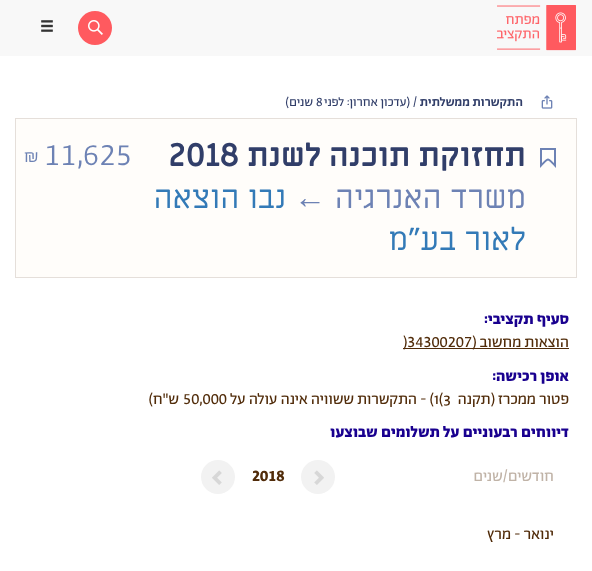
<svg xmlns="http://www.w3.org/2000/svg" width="592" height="571">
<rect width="100%" height="100%" fill="#fff"/>
<rect width="592" height="56" fill="#f8f8f8"/>
<image x="497" y="5" width="79" height="46" href="media/1.png"/>
<circle cx="95" cy="28" r="17" fill="#ff5a5f"/>
<image x="88" y="20" width="15" height="15" href="media/2.png"/>
<image x="41" y="20" width="12" height="12" href="media/3.png"/>
<image x="541" y="95" width="12" height="14" href="media/4.png"/>
<text x="523" y="106" style="font-family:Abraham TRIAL;font-size:13px;font-weight:500;direction:rtl;fill:#313e69">התקשרות ממשלתית</text>
<text x="413" y="106" style="font-family:Abraham TRIAL;font-size:13px;fill:#313e69">/</text>
<text x="410" y="106" style="font-family:Abraham TRIAL;font-size:13px;direction:rtl;fill:#313e69">(עדכון אחרון: לפני</text>
<text x="316" y="106" style="font-family:Abraham TRIAL;font-size:13px;fill:#313e69">8</text>
<text x="313" y="106" style="font-family:Abraham TRIAL;font-size:13px;direction:rtl;fill:#313e69">שנים)</text>
<rect x="15.5" y="118.5" width="561" height="159" fill="#fffdfa" stroke="#e5dfda"/>
<path d="M541 149h14v16.5c-8-8-6-8-14 0z" fill="none" stroke="#6d82b4" stroke-width="2"/>
<text x="526" y="166" style="font-family:Miriam Libre;font-size:32px;font-weight:bold;direction:rtl;fill:#313e69">תחזוקת תוכנה לשנת</text>
<text x="169" y="166" style="font-family:Miriam Libre;font-size:32px;font-weight:bold;fill:#313e69">2018</text>
<text x="526" y="208" style="font-family:Miriam Libre;font-size:32px;direction:rtl;fill:#6d82b4">משרד האנרגיה</text>
<text x="326" y="208" style="font-family:Liberation Sans;font-size:32px;direction:rtl;fill:#6d82b4">←</text>
<text x="286" y="208" style="font-family:Miriam Libre;font-size:32px;direction:rtl;fill:#337ab7">נבו הוצאה</text>
<text x="526" y="250" style="font-family:Miriam Libre;font-size:32px;direction:rtl;fill:#337ab7">לאור בע״מ</text>
<text x="44" y="165" style="font-family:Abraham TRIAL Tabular;font-size:32px;font-weight:300;fill:#6d82b4">11,625</text>
<text x="24" y="162" style="font-family:Abraham TRIAL;font-size:20px;font-weight:300;fill:#6d82b4">₪</text>
<text x="569" y="324" style="font-family:Abraham TRIAL;font-size:16px;font-weight:bold;direction:rtl;fill:#19008f">סעיף תקציבי:</text>
<rect x="403" y="348" width="166" height="1" fill="#512c0a"/>
<text x="569" y="347" style="font-family:Abraham TRIAL;font-size:16px;direction:rtl;fill:#512c0a">הוצאות מחשוב (</text>
<text x="407" y="347" style="font-family:Abraham TRIAL Tabular;font-size:16px;fill:#512c0a">34300207</text>
<text x="403" y="347" style="font-family:Abraham TRIAL;font-size:16px;fill:#512c0a">)</text>
<text x="569" y="381" style="font-family:Abraham TRIAL;font-size:16px;font-weight:bold;direction:rtl;fill:#19008f">אופן רכישה:</text>
<text x="569" y="404" style="font-family:Abraham TRIAL;font-size:16px;direction:rtl;fill:#512c0a">פטור ממכרז</text>
<text x="495" y="404" style="font-family:Abraham TRIAL;font-size:16px;direction:rtl;fill:#512c0a">(תקנה</text>
<text x="434" y="404" style="font-family:Abraham TRIAL;font-size:16px;fill:#512c0a">1(3</text>
<text x="434" y="404" style="font-family:Abraham TRIAL;font-size:16px;direction:rtl;fill:#512c0a">) - התקשרות ששוויה אינה עולה על</text>
<text x="183" y="404" style="font-family:Abraham TRIAL Tabular;font-size:16px;fill:#512c0a">50,000</text>
<text x="179" y="404" style="font-family:Abraham TRIAL;font-size:16px;direction:rtl;fill:#512c0a">ש"ח)</text>
<text x="569" y="437" style="font-family:Abraham TRIAL;font-size:16px;font-weight:bold;direction:rtl;fill:#19008f">דיווחים רבעוניים על תשלומים שבוצעו</text>
<text x="554" y="481" style="font-family:Abraham TRIAL;font-size:16px;direction:rtl;fill:#c0b3a7">חודשים/שנים</text>
<circle cx="318" cy="477" r="17" fill="#f2f2f2"/>
<image x="314" y="470" width="10" height="15" href="media/5.png"/>
<text x="252" y="481" style="font-family:Abraham TRIAL Tabular;font-size:16px;font-weight:bold;fill:#512c0a">2018</text>
<circle cx="218" cy="477" r="17" fill="#f2f2f2"/>
<image x="212" y="470" width="10" height="15" href="media/6.png"/>
<text x="554" y="539" style="font-family:Abraham TRIAL;font-size:16px;direction:rtl;fill:#512c0a">ינואר - מרץ</text>
</svg>
